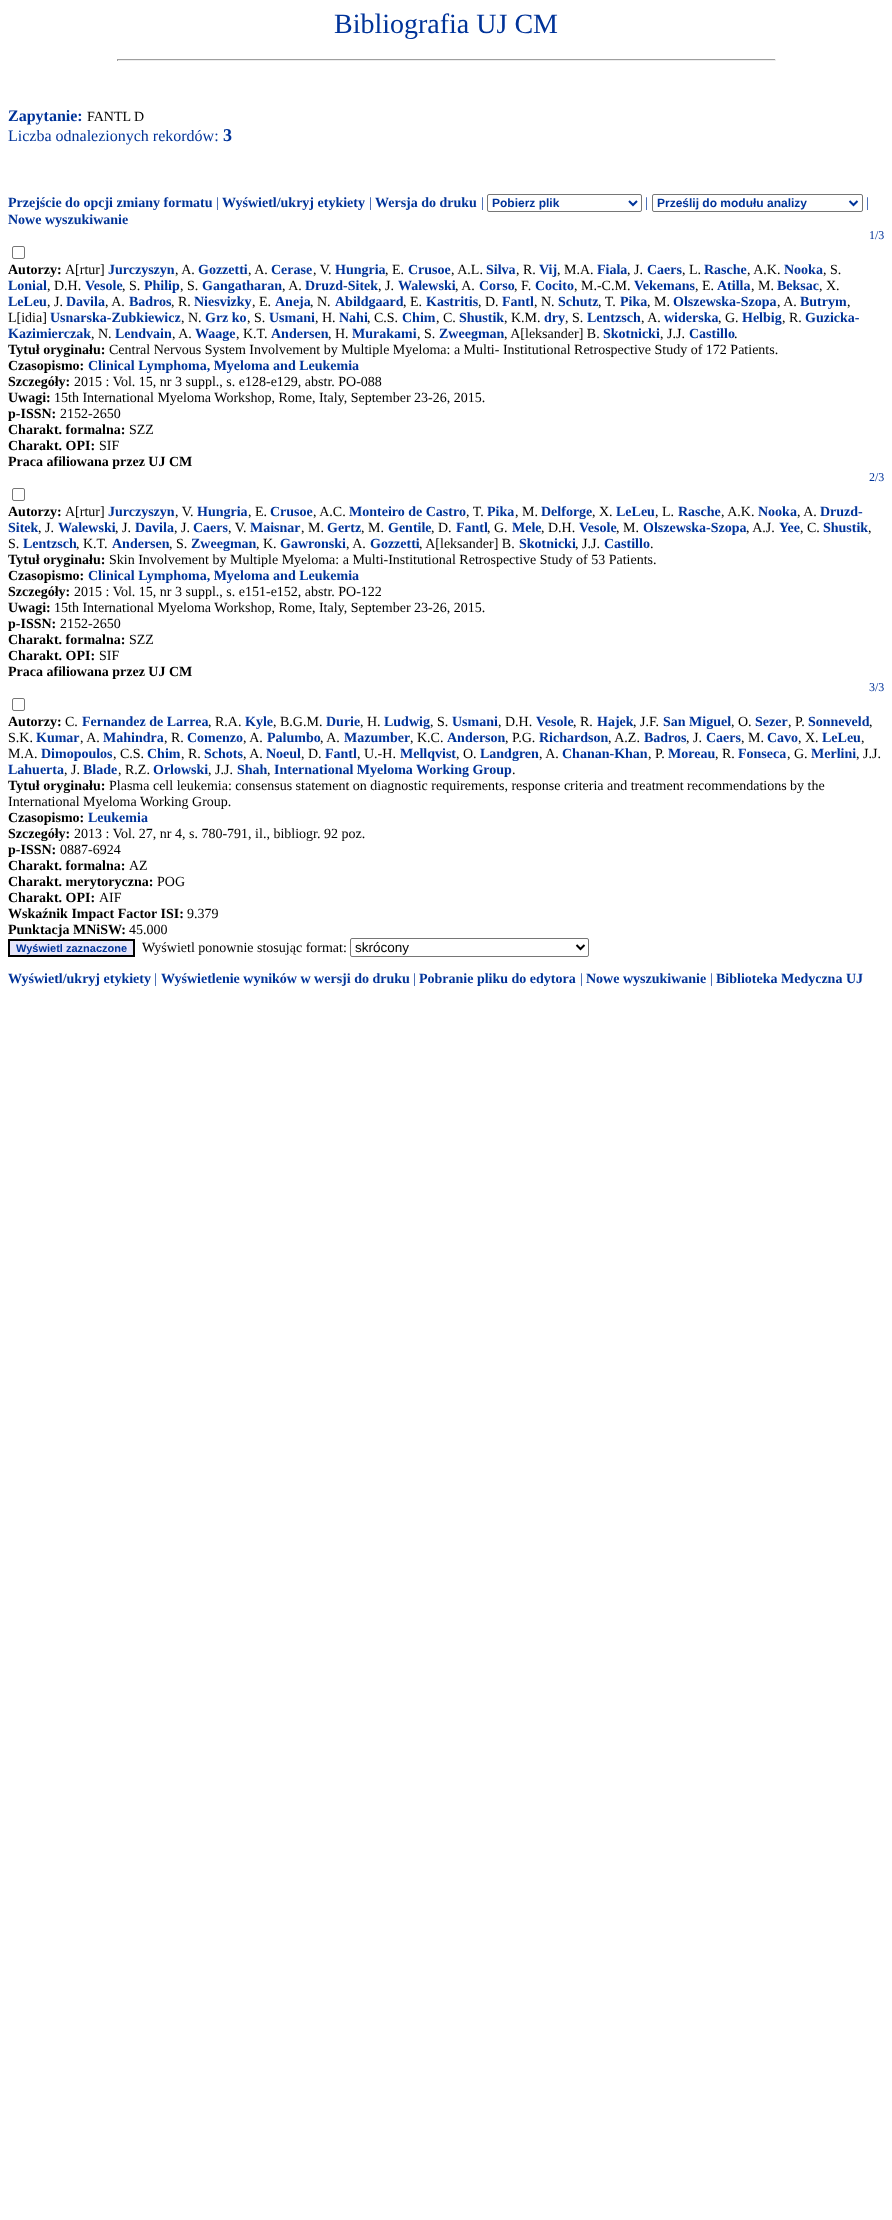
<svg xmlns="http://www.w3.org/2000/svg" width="892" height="2220">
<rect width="100%" height="100%" fill="#fff"/>
<text x="334" y="33" style="font-family:Liberation Serif;font-size:28px;fill:#039">Bibliografia UJ CM</text>
<rect x="117" y="59" width="659" height="1" fill="#9f9f9f"/>
<rect x="775" y="59" width="1" height="2" fill="#eee"/>
<rect x="117" y="60" width="659" height="1" fill="#eee"/>
<rect x="117" y="59" width="1" height="2" fill="#9f9f9f"/>
<text x="8" y="121" style="font-family:Liberation Serif;font-size:16px;font-weight:bold;fill:#039">Zapytanie:</text>
<text x="87" y="121" style="font-family:Liberation Serif;font-size:14px;fill:#000">FANTL D</text>
<text x="8" y="141" style="font-family:Liberation Serif;font-size:16px;fill:#039">Liczba odnalezionych rekordów:</text>
<text x="223" y="141" style="font-family:Liberation Serif;font-size:18px;font-weight:bold;fill:#039">3</text>
<text x="8" y="207" style="font-family:Liberation Serif;font-size:14px;font-weight:bold;fill:#039">Przejście do opcji zmiany formatu</text>
<text x="216" y="207" style="font-family:Liberation Serif;font-size:14px;fill:#039">|</text>
<text x="222" y="207" style="font-family:Liberation Serif;font-size:14px;font-weight:bold;fill:#039">Wyświetl/ukryj etykiety</text>
<text x="369" y="207" style="font-family:Liberation Serif;font-size:14px;fill:#039">|</text>
<text x="375" y="207" style="font-family:Liberation Serif;font-size:14px;font-weight:bold;fill:#039">Wersja do druku</text>
<text x="481" y="207" style="font-family:Liberation Serif;font-size:14px;fill:#039">|</text>
<rect x="487.5" y="194.5" width="154" height="17" rx="1.5" fill="none" stroke="#767676"/>
<path d="M629 201l4 4l4-4" fill="none" stroke="#039" stroke-width="2"/>
<text x="492" y="207" style="font-family:Liberation Sans;font-size:12px;font-weight:bold;fill:#039">Pobierz plik</text>
<text x="645" y="207" style="font-family:Liberation Serif;font-size:14px;fill:#039">|</text>
<rect x="652.5" y="194.5" width="210" height="17" rx="1.5" fill="none" stroke="#767676"/>
<path d="M849.5 201l4 4l4-4" fill="none" stroke="#039" stroke-width="2"/>
<text x="657" y="207" style="font-family:Liberation Sans;font-size:12px;font-weight:bold;fill:#039">Prześlij do modułu analizy</text>
<text x="866" y="207" style="font-family:Liberation Serif;font-size:14px;fill:#039">|</text>
<text x="8" y="224" style="font-family:Liberation Serif;font-size:14px;font-weight:bold;fill:#039">Nowe wyszukiwanie</text>
<text x="869" y="239" style="font-family:Liberation Serif;font-size:12px;fill:#039">1/3</text>
<rect x="12.5" y="246.5" width="12" height="12" rx="1.5" fill="none" stroke="#767676"/>
<text x="8" y="274" style="font-family:Liberation Serif;font-size:14px;font-weight:bold;fill:#000">Autorzy:</text>
<text x="65" y="274" style="font-family:Liberation Serif;font-size:14px;fill:#000">A[rtur]</text>
<text x="108" y="274" style="font-family:Liberation Serif;font-size:14px;font-weight:bold;fill:#039">Jurczyszyn</text>
<text x="175" y="274" style="font-family:Liberation Serif;font-size:14px;fill:#000">, A.</text>
<text x="198" y="274" style="font-family:Liberation Serif;font-size:14px;font-weight:bold;fill:#039">Gozzetti</text>
<text x="248" y="274" style="font-family:Liberation Serif;font-size:14px;fill:#000">, A.</text>
<text x="271" y="274" style="font-family:Liberation Serif;font-size:14px;font-weight:bold;fill:#039">Cerase</text>
<text x="313" y="274" style="font-family:Liberation Serif;font-size:14px;fill:#000">, V.</text>
<text x="335" y="274" style="font-family:Liberation Serif;font-size:14px;font-weight:bold;fill:#039">Hungria</text>
<text x="385" y="274" style="font-family:Liberation Serif;font-size:14px;fill:#000">, E.</text>
<text x="408" y="274" style="font-family:Liberation Serif;font-size:14px;font-weight:bold;fill:#039">Crusoe</text>
<text x="451" y="274" style="font-family:Liberation Serif;font-size:14px;fill:#000">, A.L.</text>
<text x="486" y="274" style="font-family:Liberation Serif;font-size:14px;font-weight:bold;fill:#039">Silva</text>
<text x="516" y="274" style="font-family:Liberation Serif;font-size:14px;fill:#000">, R.</text>
<text x="539" y="274" style="font-family:Liberation Serif;font-size:14px;font-weight:bold;fill:#039">Vij</text>
<text x="557" y="274" style="font-family:Liberation Serif;font-size:14px;fill:#000">, M.A.</text>
<text x="597" y="274" style="font-family:Liberation Serif;font-size:14px;font-weight:bold;fill:#039">Fiala</text>
<text x="627" y="274" style="font-family:Liberation Serif;font-size:14px;fill:#000">, J.</text>
<text x="647" y="274" style="font-family:Liberation Serif;font-size:14px;font-weight:bold;fill:#039">Caers</text>
<text x="682" y="274" style="font-family:Liberation Serif;font-size:14px;fill:#000">, L.</text>
<text x="704" y="274" style="font-family:Liberation Serif;font-size:14px;font-weight:bold;fill:#039">Rasche</text>
<text x="747" y="274" style="font-family:Liberation Serif;font-size:14px;fill:#000">, A.K.</text>
<text x="784" y="274" style="font-family:Liberation Serif;font-size:14px;font-weight:bold;fill:#039">Nooka</text>
<text x="823" y="274" style="font-family:Liberation Serif;font-size:14px;fill:#000">, S.</text>
<text x="8" y="290" style="font-family:Liberation Serif;font-size:14px;font-weight:bold;fill:#039">Lonial</text>
<text x="47" y="290" style="font-family:Liberation Serif;font-size:14px;fill:#000">, D.H.</text>
<text x="85" y="290" style="font-family:Liberation Serif;font-size:14px;font-weight:bold;fill:#039">Vesole</text>
<text x="122" y="290" style="font-family:Liberation Serif;font-size:14px;fill:#000">, S.</text>
<text x="144" y="290" style="font-family:Liberation Serif;font-size:14px;font-weight:bold;fill:#039">Philip</text>
<text x="180" y="290" style="font-family:Liberation Serif;font-size:14px;fill:#000">, S.</text>
<text x="202" y="290" style="font-family:Liberation Serif;font-size:14px;font-weight:bold;fill:#039">Gangatharan</text>
<text x="282" y="290" style="font-family:Liberation Serif;font-size:14px;fill:#000">, A.</text>
<text x="305" y="290" style="font-family:Liberation Serif;font-size:14px;font-weight:bold;fill:#039">Druzd-Sitek</text>
<text x="378" y="290" style="font-family:Liberation Serif;font-size:14px;fill:#000">, J.</text>
<text x="398" y="290" style="font-family:Liberation Serif;font-size:14px;font-weight:bold;fill:#039">Walewski</text>
<text x="455" y="290" style="font-family:Liberation Serif;font-size:14px;fill:#000">, A.</text>
<text x="479" y="290" style="font-family:Liberation Serif;font-size:14px;font-weight:bold;fill:#039">Corso</text>
<text x="514" y="290" style="font-family:Liberation Serif;font-size:14px;fill:#000">, F.</text>
<text x="535" y="290" style="font-family:Liberation Serif;font-size:14px;font-weight:bold;fill:#039">Cocito</text>
<text x="574" y="290" style="font-family:Liberation Serif;font-size:14px;fill:#000">, M.-C.M.</text>
<text x="634" y="290" style="font-family:Liberation Serif;font-size:14px;font-weight:bold;fill:#039">Vekemans</text>
<text x="695" y="290" style="font-family:Liberation Serif;font-size:14px;fill:#000">, E.</text>
<text x="717" y="290" style="font-family:Liberation Serif;font-size:14px;font-weight:bold;fill:#039">Atilla</text>
<text x="751" y="290" style="font-family:Liberation Serif;font-size:14px;fill:#000">, M.</text>
<text x="777" y="290" style="font-family:Liberation Serif;font-size:14px;font-weight:bold;fill:#039">Beksac</text>
<text x="819" y="290" style="font-family:Liberation Serif;font-size:14px;fill:#000">, X.</text>
<text x="8" y="306" style="font-family:Liberation Serif;font-size:14px;font-weight:bold;fill:#039">LeLeu</text>
<text x="47" y="306" style="font-family:Liberation Serif;font-size:14px;fill:#000">, J.</text>
<text x="66" y="306" style="font-family:Liberation Serif;font-size:14px;font-weight:bold;fill:#039">Davila</text>
<text x="105" y="306" style="font-family:Liberation Serif;font-size:14px;fill:#000">, A.</text>
<text x="129" y="306" style="font-family:Liberation Serif;font-size:14px;font-weight:bold;fill:#039">Badros</text>
<text x="171" y="306" style="font-family:Liberation Serif;font-size:14px;fill:#000">, R.</text>
<text x="194" y="306" style="font-family:Liberation Serif;font-size:14px;font-weight:bold;fill:#039">Niesvizky</text>
<text x="252" y="306" style="font-family:Liberation Serif;font-size:14px;fill:#000">, E.</text>
<text x="275" y="306" style="font-family:Liberation Serif;font-size:14px;font-weight:bold;fill:#039">Aneja</text>
<text x="310" y="306" style="font-family:Liberation Serif;font-size:14px;fill:#000">, N.</text>
<text x="335" y="306" style="font-family:Liberation Serif;font-size:14px;font-weight:bold;fill:#039">Abildgaard</text>
<text x="403" y="306" style="font-family:Liberation Serif;font-size:14px;fill:#000">, E.</text>
<text x="426" y="306" style="font-family:Liberation Serif;font-size:14px;font-weight:bold;fill:#039">Kastritis</text>
<text x="478" y="306" style="font-family:Liberation Serif;font-size:14px;fill:#000">, D.</text>
<text x="502" y="306" style="font-family:Liberation Serif;font-size:14px;font-weight:bold;fill:#039">Fantl</text>
<text x="534" y="306" style="font-family:Liberation Serif;font-size:14px;fill:#000">, N.</text>
<text x="558" y="306" style="font-family:Liberation Serif;font-size:14px;font-weight:bold;fill:#039">Schutz</text>
<text x="598" y="306" style="font-family:Liberation Serif;font-size:14px;fill:#000">, T.</text>
<text x="620" y="306" style="font-family:Liberation Serif;font-size:14px;font-weight:bold;fill:#039">Pika</text>
<text x="647" y="306" style="font-family:Liberation Serif;font-size:14px;fill:#000">, M.</text>
<text x="673" y="306" style="font-family:Liberation Serif;font-size:14px;font-weight:bold;fill:#039">Olszewska-Szopa</text>
<text x="777" y="306" style="font-family:Liberation Serif;font-size:14px;fill:#000">, A.</text>
<text x="800" y="306" style="font-family:Liberation Serif;font-size:14px;font-weight:bold;fill:#039">Butrym</text>
<text x="847" y="306" style="font-family:Liberation Serif;font-size:14px;fill:#000">,</text>
<text x="8" y="322" style="font-family:Liberation Serif;font-size:14px;fill:#000">L[idia]</text>
<text x="50" y="322" style="font-family:Liberation Serif;font-size:14px;font-weight:bold;fill:#039">Usnarska-Zubkiewicz</text>
<text x="181" y="322" style="font-family:Liberation Serif;font-size:14px;fill:#000">, N.</text>
<text x="205" y="322" style="font-family:Liberation Serif;font-size:14px;font-weight:bold;fill:#039">Grz ko</text>
<text x="247" y="322" style="font-family:Liberation Serif;font-size:14px;fill:#000">, S.</text>
<text x="269" y="322" style="font-family:Liberation Serif;font-size:14px;font-weight:bold;fill:#039">Usmani</text>
<text x="315" y="322" style="font-family:Liberation Serif;font-size:14px;fill:#000">, H.</text>
<text x="339" y="322" style="font-family:Liberation Serif;font-size:14px;font-weight:bold;fill:#039">Nahi</text>
<text x="367" y="322" style="font-family:Liberation Serif;font-size:14px;fill:#000">, C.S.</text>
<text x="402" y="322" style="font-family:Liberation Serif;font-size:14px;font-weight:bold;fill:#039">Chim</text>
<text x="436" y="322" style="font-family:Liberation Serif;font-size:14px;fill:#000">, C.</text>
<text x="459" y="322" style="font-family:Liberation Serif;font-size:14px;font-weight:bold;fill:#039">Shustik</text>
<text x="504" y="322" style="font-family:Liberation Serif;font-size:14px;fill:#000">, K.M.</text>
<text x="544" y="322" style="font-family:Liberation Serif;font-size:14px;font-weight:bold;fill:#039">dry</text>
<text x="565" y="322" style="font-family:Liberation Serif;font-size:14px;fill:#000">, S.</text>
<text x="587" y="322" style="font-family:Liberation Serif;font-size:14px;font-weight:bold;fill:#039">Lentzsch</text>
<text x="641" y="322" style="font-family:Liberation Serif;font-size:14px;fill:#000">, A.</text>
<text x="664" y="322" style="font-family:Liberation Serif;font-size:14px;font-weight:bold;fill:#039">widerska</text>
<text x="718" y="322" style="font-family:Liberation Serif;font-size:14px;fill:#000">, G.</text>
<text x="742" y="322" style="font-family:Liberation Serif;font-size:14px;font-weight:bold;fill:#039">Helbig</text>
<text x="782" y="322" style="font-family:Liberation Serif;font-size:14px;fill:#000">, R.</text>
<text x="805" y="322" style="font-family:Liberation Serif;font-size:14px;font-weight:bold;fill:#039">Guzicka-</text>
<text x="8" y="338" style="font-family:Liberation Serif;font-size:14px;font-weight:bold;fill:#039">Kazimierczak</text>
<text x="91" y="338" style="font-family:Liberation Serif;font-size:14px;fill:#000">, N.</text>
<text x="115" y="338" style="font-family:Liberation Serif;font-size:14px;font-weight:bold;fill:#039">Lendvain</text>
<text x="172" y="338" style="font-family:Liberation Serif;font-size:14px;fill:#000">, A.</text>
<text x="195" y="338" style="font-family:Liberation Serif;font-size:14px;font-weight:bold;fill:#039">Waage</text>
<text x="236" y="338" style="font-family:Liberation Serif;font-size:14px;fill:#000">, K.T.</text>
<text x="271" y="338" style="font-family:Liberation Serif;font-size:14px;font-weight:bold;fill:#039">Andersen</text>
<text x="328" y="338" style="font-family:Liberation Serif;font-size:14px;fill:#000">, H.</text>
<text x="352" y="338" style="font-family:Liberation Serif;font-size:14px;font-weight:bold;fill:#039">Murakami</text>
<text x="417" y="338" style="font-family:Liberation Serif;font-size:14px;fill:#000">, S.</text>
<text x="439" y="338" style="font-family:Liberation Serif;font-size:14px;font-weight:bold;fill:#039">Zweegman</text>
<text x="504" y="338" style="font-family:Liberation Serif;font-size:14px;fill:#000">, A[leksander] B.</text>
<text x="603" y="338" style="font-family:Liberation Serif;font-size:14px;font-weight:bold;fill:#039">Skotnicki</text>
<text x="660" y="338" style="font-family:Liberation Serif;font-size:14px;fill:#000">, J.J.</text>
<text x="689" y="338" style="font-family:Liberation Serif;font-size:14px;font-weight:bold;fill:#039">Castillo</text>
<text x="734" y="338" style="font-family:Liberation Serif;font-size:14px;fill:#000">.</text>
<text x="8" y="354" style="font-family:Liberation Serif;font-size:14px;font-weight:bold;fill:#000">Tytuł oryginału:</text>
<text x="109" y="354" style="font-family:Liberation Serif;font-size:14px;fill:#000">Central Nervous System Involvement by Multiple Myeloma: a Multi- Institutional Retrospective Study of 172 Patients.</text>
<text x="8" y="370" style="font-family:Liberation Serif;font-size:14px;font-weight:bold;fill:#000">Czasopismo:</text>
<text x="88" y="370" style="font-family:Liberation Serif;font-size:14px;font-weight:bold;fill:#039">Clinical Lymphoma, Myeloma and Leukemia</text>
<text x="8" y="386" style="font-family:Liberation Serif;font-size:14px;font-weight:bold;fill:#000">Szczegóły:</text>
<text x="74" y="386" style="font-family:Liberation Serif;font-size:14px;fill:#000">2015 : Vol. 15, nr 3 suppl., s. e128-e129, abstr. PO-088</text>
<text x="8" y="402" style="font-family:Liberation Serif;font-size:14px;font-weight:bold;fill:#000">Uwagi:</text>
<text x="54" y="402" style="font-family:Liberation Serif;font-size:14px;fill:#000">15th International Myeloma Workshop, Rome, Italy, September 23-26, 2015.</text>
<text x="8" y="418" style="font-family:Liberation Serif;font-size:14px;font-weight:bold;fill:#000">p-ISSN:</text>
<text x="60" y="418" style="font-family:Liberation Serif;font-size:14px;fill:#000">2152-2650</text>
<text x="8" y="434" style="font-family:Liberation Serif;font-size:14px;font-weight:bold;fill:#000">Charakt. formalna:</text>
<text x="129" y="434" style="font-family:Liberation Serif;font-size:14px;fill:#000">SZZ</text>
<text x="8" y="450" style="font-family:Liberation Serif;font-size:14px;font-weight:bold;fill:#000">Charakt. OPI:</text>
<text x="99" y="450" style="font-family:Liberation Serif;font-size:14px;fill:#000">SIF</text>
<text x="8" y="466" style="font-family:Liberation Serif;font-size:14px;font-weight:bold;fill:#000">Praca afiliowana przez UJ CM</text>
<text x="869" y="481" style="font-family:Liberation Serif;font-size:12px;fill:#039">2/3</text>
<rect x="12.5" y="488.5" width="12" height="12" rx="1.5" fill="none" stroke="#767676"/>
<text x="8" y="516" style="font-family:Liberation Serif;font-size:14px;font-weight:bold;fill:#000">Autorzy:</text>
<text x="65" y="516" style="font-family:Liberation Serif;font-size:14px;fill:#000">A[rtur]</text>
<text x="108" y="516" style="font-family:Liberation Serif;font-size:14px;font-weight:bold;fill:#039">Jurczyszyn</text>
<text x="175" y="516" style="font-family:Liberation Serif;font-size:14px;fill:#000">, V.</text>
<text x="197" y="516" style="font-family:Liberation Serif;font-size:14px;font-weight:bold;fill:#039">Hungria</text>
<text x="248" y="516" style="font-family:Liberation Serif;font-size:14px;fill:#000">, E.</text>
<text x="270" y="516" style="font-family:Liberation Serif;font-size:14px;font-weight:bold;fill:#039">Crusoe</text>
<text x="313" y="516" style="font-family:Liberation Serif;font-size:14px;fill:#000">, A.C.</text>
<text x="349" y="516" style="font-family:Liberation Serif;font-size:14px;font-weight:bold;fill:#039">Monteiro de Castro</text>
<text x="466" y="516" style="font-family:Liberation Serif;font-size:14px;fill:#000">, T.</text>
<text x="487" y="516" style="font-family:Liberation Serif;font-size:14px;font-weight:bold;fill:#039">Pika</text>
<text x="515" y="516" style="font-family:Liberation Serif;font-size:14px;fill:#000">, M.</text>
<text x="541" y="516" style="font-family:Liberation Serif;font-size:14px;font-weight:bold;fill:#039">Delforge</text>
<text x="592" y="516" style="font-family:Liberation Serif;font-size:14px;fill:#000">, X.</text>
<text x="616" y="516" style="font-family:Liberation Serif;font-size:14px;font-weight:bold;fill:#039">LeLeu</text>
<text x="655" y="516" style="font-family:Liberation Serif;font-size:14px;fill:#000">, L.</text>
<text x="678" y="516" style="font-family:Liberation Serif;font-size:14px;font-weight:bold;fill:#039">Rasche</text>
<text x="721" y="516" style="font-family:Liberation Serif;font-size:14px;fill:#000">, A.K.</text>
<text x="758" y="516" style="font-family:Liberation Serif;font-size:14px;font-weight:bold;fill:#039">Nooka</text>
<text x="797" y="516" style="font-family:Liberation Serif;font-size:14px;fill:#000">, A.</text>
<text x="820" y="516" style="font-family:Liberation Serif;font-size:14px;font-weight:bold;fill:#039">Druzd-</text>
<text x="8" y="532" style="font-family:Liberation Serif;font-size:14px;font-weight:bold;fill:#039">Sitek</text>
<text x="38" y="532" style="font-family:Liberation Serif;font-size:14px;fill:#000">, J.</text>
<text x="58" y="532" style="font-family:Liberation Serif;font-size:14px;font-weight:bold;fill:#039">Walewski</text>
<text x="115" y="532" style="font-family:Liberation Serif;font-size:14px;fill:#000">, J.</text>
<text x="135" y="532" style="font-family:Liberation Serif;font-size:14px;font-weight:bold;fill:#039">Davila</text>
<text x="174" y="532" style="font-family:Liberation Serif;font-size:14px;fill:#000">, J.</text>
<text x="193" y="532" style="font-family:Liberation Serif;font-size:14px;font-weight:bold;fill:#039">Caers</text>
<text x="228" y="532" style="font-family:Liberation Serif;font-size:14px;fill:#000">, V.</text>
<text x="250" y="532" style="font-family:Liberation Serif;font-size:14px;font-weight:bold;fill:#039">Maisnar</text>
<text x="301" y="532" style="font-family:Liberation Serif;font-size:14px;fill:#000">, M.</text>
<text x="327" y="532" style="font-family:Liberation Serif;font-size:14px;font-weight:bold;fill:#039">Gertz</text>
<text x="361" y="532" style="font-family:Liberation Serif;font-size:14px;fill:#000">, M.</text>
<text x="388" y="532" style="font-family:Liberation Serif;font-size:14px;font-weight:bold;fill:#039">Gentile</text>
<text x="431" y="532" style="font-family:Liberation Serif;font-size:14px;fill:#000">, D.</text>
<text x="456" y="532" style="font-family:Liberation Serif;font-size:14px;font-weight:bold;fill:#039">Fantl</text>
<text x="487" y="532" style="font-family:Liberation Serif;font-size:14px;fill:#000">, G.</text>
<text x="512" y="532" style="font-family:Liberation Serif;font-size:14px;font-weight:bold;fill:#039">Mele</text>
<text x="541" y="532" style="font-family:Liberation Serif;font-size:14px;fill:#000">, D.H.</text>
<text x="579" y="532" style="font-family:Liberation Serif;font-size:14px;font-weight:bold;fill:#039">Vesole</text>
<text x="616" y="532" style="font-family:Liberation Serif;font-size:14px;fill:#000">, M.</text>
<text x="643" y="532" style="font-family:Liberation Serif;font-size:14px;font-weight:bold;fill:#039">Olszewska-Szopa</text>
<text x="746" y="532" style="font-family:Liberation Serif;font-size:14px;fill:#000">, A.J.</text>
<text x="779" y="532" style="font-family:Liberation Serif;font-size:14px;font-weight:bold;fill:#039">Yee</text>
<text x="800" y="532" style="font-family:Liberation Serif;font-size:14px;fill:#000">, C.</text>
<text x="823" y="532" style="font-family:Liberation Serif;font-size:14px;font-weight:bold;fill:#039">Shustik</text>
<text x="868" y="532" style="font-family:Liberation Serif;font-size:14px;fill:#000">,</text>
<text x="8" y="548" style="font-family:Liberation Serif;font-size:14px;fill:#000">S.</text>
<text x="23" y="548" style="font-family:Liberation Serif;font-size:14px;font-weight:bold;fill:#039">Lentzsch</text>
<text x="76" y="548" style="font-family:Liberation Serif;font-size:14px;fill:#000">, K.T.</text>
<text x="112" y="548" style="font-family:Liberation Serif;font-size:14px;font-weight:bold;fill:#039">Andersen</text>
<text x="169" y="548" style="font-family:Liberation Serif;font-size:14px;fill:#000">, S.</text>
<text x="191" y="548" style="font-family:Liberation Serif;font-size:14px;font-weight:bold;fill:#039">Zweegman</text>
<text x="256" y="548" style="font-family:Liberation Serif;font-size:14px;fill:#000">, K.</text>
<text x="280" y="548" style="font-family:Liberation Serif;font-size:14px;font-weight:bold;fill:#039">Gawronski</text>
<text x="346" y="548" style="font-family:Liberation Serif;font-size:14px;fill:#000">, A.</text>
<text x="370" y="548" style="font-family:Liberation Serif;font-size:14px;font-weight:bold;fill:#039">Gozzetti</text>
<text x="419" y="548" style="font-family:Liberation Serif;font-size:14px;fill:#000">, A[leksander] B.</text>
<text x="519" y="548" style="font-family:Liberation Serif;font-size:14px;font-weight:bold;fill:#039">Skotnicki</text>
<text x="575" y="548" style="font-family:Liberation Serif;font-size:14px;fill:#000">, J.J.</text>
<text x="604" y="548" style="font-family:Liberation Serif;font-size:14px;font-weight:bold;fill:#039">Castillo</text>
<text x="650" y="548" style="font-family:Liberation Serif;font-size:14px;fill:#000">.</text>
<text x="8" y="564" style="font-family:Liberation Serif;font-size:14px;font-weight:bold;fill:#000">Tytuł oryginału:</text>
<text x="109" y="564" style="font-family:Liberation Serif;font-size:14px;fill:#000">Skin Involvement by Multiple Myeloma: a Multi-Institutional Retrospective Study of 53 Patients.</text>
<text x="8" y="580" style="font-family:Liberation Serif;font-size:14px;font-weight:bold;fill:#000">Czasopismo:</text>
<text x="88" y="580" style="font-family:Liberation Serif;font-size:14px;font-weight:bold;fill:#039">Clinical Lymphoma, Myeloma and Leukemia</text>
<text x="8" y="596" style="font-family:Liberation Serif;font-size:14px;font-weight:bold;fill:#000">Szczegóły:</text>
<text x="74" y="596" style="font-family:Liberation Serif;font-size:14px;fill:#000">2015 : Vol. 15, nr 3 suppl., s. e151-e152, abstr. PO-122</text>
<text x="8" y="612" style="font-family:Liberation Serif;font-size:14px;font-weight:bold;fill:#000">Uwagi:</text>
<text x="54" y="612" style="font-family:Liberation Serif;font-size:14px;fill:#000">15th International Myeloma Workshop, Rome, Italy, September 23-26, 2015.</text>
<text x="8" y="628" style="font-family:Liberation Serif;font-size:14px;font-weight:bold;fill:#000">p-ISSN:</text>
<text x="60" y="628" style="font-family:Liberation Serif;font-size:14px;fill:#000">2152-2650</text>
<text x="8" y="644" style="font-family:Liberation Serif;font-size:14px;font-weight:bold;fill:#000">Charakt. formalna:</text>
<text x="129" y="644" style="font-family:Liberation Serif;font-size:14px;fill:#000">SZZ</text>
<text x="8" y="660" style="font-family:Liberation Serif;font-size:14px;font-weight:bold;fill:#000">Charakt. OPI:</text>
<text x="99" y="660" style="font-family:Liberation Serif;font-size:14px;fill:#000">SIF</text>
<text x="8" y="676" style="font-family:Liberation Serif;font-size:14px;font-weight:bold;fill:#000">Praca afiliowana przez UJ CM</text>
<text x="869" y="691" style="font-family:Liberation Serif;font-size:12px;fill:#039">3/3</text>
<rect x="12.5" y="698.5" width="12" height="12" rx="1.5" fill="none" stroke="#767676"/>
<text x="8" y="726" style="font-family:Liberation Serif;font-size:14px;font-weight:bold;fill:#000">Autorzy:</text>
<text x="65" y="726" style="font-family:Liberation Serif;font-size:14px;fill:#000">C.</text>
<text x="82" y="726" style="font-family:Liberation Serif;font-size:14px;font-weight:bold;fill:#039">Fernandez de Larrea</text>
<text x="208" y="726" style="font-family:Liberation Serif;font-size:14px;fill:#000">, R.A.</text>
<text x="245" y="726" style="font-family:Liberation Serif;font-size:14px;font-weight:bold;fill:#039">Kyle</text>
<text x="273" y="726" style="font-family:Liberation Serif;font-size:14px;fill:#000">, B.G.M.</text>
<text x="326" y="726" style="font-family:Liberation Serif;font-size:14px;font-weight:bold;fill:#039">Durie</text>
<text x="360" y="726" style="font-family:Liberation Serif;font-size:14px;fill:#000">, H.</text>
<text x="384" y="726" style="font-family:Liberation Serif;font-size:14px;font-weight:bold;fill:#039">Ludwig</text>
<text x="430" y="726" style="font-family:Liberation Serif;font-size:14px;fill:#000">, S.</text>
<text x="452" y="726" style="font-family:Liberation Serif;font-size:14px;font-weight:bold;fill:#039">Usmani</text>
<text x="498" y="726" style="font-family:Liberation Serif;font-size:14px;fill:#000">, D.H.</text>
<text x="536" y="726" style="font-family:Liberation Serif;font-size:14px;font-weight:bold;fill:#039">Vesole</text>
<text x="573" y="726" style="font-family:Liberation Serif;font-size:14px;fill:#000">, R.</text>
<text x="597" y="726" style="font-family:Liberation Serif;font-size:14px;font-weight:bold;fill:#039">Hajek</text>
<text x="633" y="726" style="font-family:Liberation Serif;font-size:14px;fill:#000">, J.F.</text>
<text x="663" y="726" style="font-family:Liberation Serif;font-size:14px;font-weight:bold;fill:#039">San Miguel</text>
<text x="731" y="726" style="font-family:Liberation Serif;font-size:14px;fill:#000">, O.</text>
<text x="755" y="726" style="font-family:Liberation Serif;font-size:14px;font-weight:bold;fill:#039">Sezer</text>
<text x="788" y="726" style="font-family:Liberation Serif;font-size:14px;fill:#000">, P.</text>
<text x="808" y="726" style="font-family:Liberation Serif;font-size:14px;font-weight:bold;fill:#039">Sonneveld</text>
<text x="869" y="726" style="font-family:Liberation Serif;font-size:14px;fill:#000">,</text>
<text x="8" y="742" style="font-family:Liberation Serif;font-size:14px;fill:#000">S.K.</text>
<text x="36" y="742" style="font-family:Liberation Serif;font-size:14px;font-weight:bold;fill:#039">Kumar</text>
<text x="80" y="742" style="font-family:Liberation Serif;font-size:14px;fill:#000">, A.</text>
<text x="103" y="742" style="font-family:Liberation Serif;font-size:14px;font-weight:bold;fill:#039">Mahindra</text>
<text x="164" y="742" style="font-family:Liberation Serif;font-size:14px;fill:#000">, R.</text>
<text x="187" y="742" style="font-family:Liberation Serif;font-size:14px;font-weight:bold;fill:#039">Comenzo</text>
<text x="243" y="742" style="font-family:Liberation Serif;font-size:14px;fill:#000">, A.</text>
<text x="267" y="742" style="font-family:Liberation Serif;font-size:14px;font-weight:bold;fill:#039">Palumbo</text>
<text x="320" y="742" style="font-family:Liberation Serif;font-size:14px;fill:#000">, A.</text>
<text x="344" y="742" style="font-family:Liberation Serif;font-size:14px;font-weight:bold;fill:#039">Mazumber</text>
<text x="410" y="742" style="font-family:Liberation Serif;font-size:14px;fill:#000">, K.C.</text>
<text x="447" y="742" style="font-family:Liberation Serif;font-size:14px;font-weight:bold;fill:#039">Anderson</text>
<text x="505" y="742" style="font-family:Liberation Serif;font-size:14px;fill:#000">, P.G.</text>
<text x="539" y="742" style="font-family:Liberation Serif;font-size:14px;font-weight:bold;fill:#039">Richardson</text>
<text x="608" y="742" style="font-family:Liberation Serif;font-size:14px;fill:#000">, A.Z.</text>
<text x="644" y="742" style="font-family:Liberation Serif;font-size:14px;font-weight:bold;fill:#039">Badros</text>
<text x="686" y="742" style="font-family:Liberation Serif;font-size:14px;fill:#000">, J.</text>
<text x="706" y="742" style="font-family:Liberation Serif;font-size:14px;font-weight:bold;fill:#039">Caers</text>
<text x="741" y="742" style="font-family:Liberation Serif;font-size:14px;fill:#000">, M.</text>
<text x="767" y="742" style="font-family:Liberation Serif;font-size:14px;font-weight:bold;fill:#039">Cavo</text>
<text x="798" y="742" style="font-family:Liberation Serif;font-size:14px;fill:#000">, X.</text>
<text x="822" y="742" style="font-family:Liberation Serif;font-size:14px;font-weight:bold;fill:#039">LeLeu</text>
<text x="861" y="742" style="font-family:Liberation Serif;font-size:14px;fill:#000">,</text>
<text x="8" y="758" style="font-family:Liberation Serif;font-size:14px;fill:#000">M.A.</text>
<text x="41" y="758" style="font-family:Liberation Serif;font-size:14px;font-weight:bold;fill:#039">Dimopoulos</text>
<text x="113" y="758" style="font-family:Liberation Serif;font-size:14px;fill:#000">, C.S.</text>
<text x="147" y="758" style="font-family:Liberation Serif;font-size:14px;font-weight:bold;fill:#039">Chim</text>
<text x="181" y="758" style="font-family:Liberation Serif;font-size:14px;fill:#000">, R.</text>
<text x="204" y="758" style="font-family:Liberation Serif;font-size:14px;font-weight:bold;fill:#039">Schots</text>
<text x="243" y="758" style="font-family:Liberation Serif;font-size:14px;fill:#000">, A.</text>
<text x="266" y="758" style="font-family:Liberation Serif;font-size:14px;font-weight:bold;fill:#039">Noeul</text>
<text x="301" y="758" style="font-family:Liberation Serif;font-size:14px;fill:#000">, D.</text>
<text x="325" y="758" style="font-family:Liberation Serif;font-size:14px;font-weight:bold;fill:#039">Fantl</text>
<text x="357" y="758" style="font-family:Liberation Serif;font-size:14px;fill:#000">, U.-H.</text>
<text x="400" y="758" style="font-family:Liberation Serif;font-size:14px;font-weight:bold;fill:#039">Mellqvist</text>
<text x="456" y="758" style="font-family:Liberation Serif;font-size:14px;fill:#000">, O.</text>
<text x="480" y="758" style="font-family:Liberation Serif;font-size:14px;font-weight:bold;fill:#039">Landgren</text>
<text x="539" y="758" style="font-family:Liberation Serif;font-size:14px;fill:#000">, A.</text>
<text x="562" y="758" style="font-family:Liberation Serif;font-size:14px;font-weight:bold;fill:#039">Chanan-Khan</text>
<text x="648" y="758" style="font-family:Liberation Serif;font-size:14px;fill:#000">, P.</text>
<text x="668" y="758" style="font-family:Liberation Serif;font-size:14px;font-weight:bold;fill:#039">Moreau</text>
<text x="715" y="758" style="font-family:Liberation Serif;font-size:14px;fill:#000">, R.</text>
<text x="738" y="758" style="font-family:Liberation Serif;font-size:14px;font-weight:bold;fill:#039">Fonseca</text>
<text x="787" y="758" style="font-family:Liberation Serif;font-size:14px;fill:#000">, G.</text>
<text x="811" y="758" style="font-family:Liberation Serif;font-size:14px;font-weight:bold;fill:#039">Merlini</text>
<text x="856" y="758" style="font-family:Liberation Serif;font-size:14px;fill:#000">, J.J.</text>
<text x="8" y="774" style="font-family:Liberation Serif;font-size:14px;font-weight:bold;fill:#039">Lahuerta</text>
<text x="64" y="774" style="font-family:Liberation Serif;font-size:14px;fill:#000">, J.</text>
<text x="83" y="774" style="font-family:Liberation Serif;font-size:14px;font-weight:bold;fill:#039">Blade</text>
<text x="118" y="774" style="font-family:Liberation Serif;font-size:14px;fill:#000">, R.Z.</text>
<text x="153" y="774" style="font-family:Liberation Serif;font-size:14px;font-weight:bold;fill:#039">Orlowski</text>
<text x="208" y="774" style="font-family:Liberation Serif;font-size:14px;fill:#000">, J.J.</text>
<text x="237" y="774" style="font-family:Liberation Serif;font-size:14px;font-weight:bold;fill:#039">Shah</text>
<text x="267" y="774" style="font-family:Liberation Serif;font-size:14px;fill:#000">,</text>
<text x="274" y="774" style="font-family:Liberation Serif;font-size:14px;font-weight:bold;fill:#039">International Myeloma Working Group</text>
<text x="512" y="774" style="font-family:Liberation Serif;font-size:14px;fill:#000">.</text>
<text x="8" y="790" style="font-family:Liberation Serif;font-size:14px;font-weight:bold;fill:#000">Tytuł oryginału:</text>
<text x="109" y="790" style="font-family:Liberation Serif;font-size:14px;fill:#000">Plasma cell leukemia: consensus statement on diagnostic requirements, response criteria and treatment recommendations by the</text>
<text x="8" y="806" style="font-family:Liberation Serif;font-size:14px;fill:#000">International Myeloma Working Group.</text>
<text x="8" y="822" style="font-family:Liberation Serif;font-size:14px;font-weight:bold;fill:#000">Czasopismo:</text>
<text x="88" y="822" style="font-family:Liberation Serif;font-size:14px;font-weight:bold;fill:#039">Leukemia</text>
<text x="8" y="838" style="font-family:Liberation Serif;font-size:14px;font-weight:bold;fill:#000">Szczegóły:</text>
<text x="74" y="838" style="font-family:Liberation Serif;font-size:14px;fill:#000">2013 : Vol. 27, nr 4, s. 780-791, il., bibliogr. 92 poz.</text>
<text x="8" y="854" style="font-family:Liberation Serif;font-size:14px;font-weight:bold;fill:#000">p-ISSN:</text>
<text x="60" y="854" style="font-family:Liberation Serif;font-size:14px;fill:#000">0887-6924</text>
<text x="8" y="870" style="font-family:Liberation Serif;font-size:14px;font-weight:bold;fill:#000">Charakt. formalna:</text>
<text x="129" y="870" style="font-family:Liberation Serif;font-size:14px;fill:#000">AZ</text>
<text x="8" y="886" style="font-family:Liberation Serif;font-size:14px;font-weight:bold;fill:#000">Charakt. merytoryczna:</text>
<text x="157" y="886" style="font-family:Liberation Serif;font-size:14px;fill:#000">POG</text>
<text x="8" y="902" style="font-family:Liberation Serif;font-size:14px;font-weight:bold;fill:#000">Charakt. OPI:</text>
<text x="99" y="902" style="font-family:Liberation Serif;font-size:14px;fill:#000">AIF</text>
<text x="8" y="918" style="font-family:Liberation Serif;font-size:14px;font-weight:bold;fill:#000">Wskaźnik Impact Factor ISI:</text>
<text x="187" y="918" style="font-family:Liberation Serif;font-size:14px;fill:#000">9.379</text>
<text x="8" y="934" style="font-family:Liberation Serif;font-size:14px;font-weight:bold;fill:#000">Punktacja MNiSW:</text>
<text x="129" y="934" style="font-family:Liberation Serif;font-size:14px;fill:#000">45.000</text>
<rect x="9" y="940" width="125" height="16" fill="#e6e6fa" stroke="#000" stroke-width="2"/>
<text x="16" y="952" style="font-family:Liberation Sans;font-size:11px;font-weight:bold;fill:#039">Wyświetl zaznaczone</text>
<text x="142" y="952" style="font-family:Liberation Serif;font-size:14px;fill:#000">Wyświetl ponownie stosując format:</text>
<rect x="350.5" y="938.5" width="238" height="18" rx="1.5" fill="none" stroke="#767676"/>
<path d="M576.5 945l4 4l4-4" fill="none" stroke="#000" stroke-width="2"/>
<text x="355" y="952" style="font-family:Liberation Sans;font-size:13.5px;fill:#000">skrócony</text>
<text x="8" y="983" style="font-family:Liberation Serif;font-size:14px;font-weight:bold;fill:#039">Wyświetl/ukryj etykiety</text>
<text x="154" y="983" style="font-family:Liberation Serif;font-size:14px;fill:#039">|</text>
<text x="161" y="983" style="font-family:Liberation Serif;font-size:14px;font-weight:bold;fill:#039">Wyświetlenie wyników w wersji do druku</text>
<text x="413" y="983" style="font-family:Liberation Serif;font-size:14px;fill:#039">|</text>
<text x="419" y="983" style="font-family:Liberation Serif;font-size:14px;font-weight:bold;fill:#039">Pobranie pliku do edytora</text>
<text x="580" y="983" style="font-family:Liberation Serif;font-size:14px;fill:#039">|</text>
<text x="586" y="983" style="font-family:Liberation Serif;font-size:14px;font-weight:bold;fill:#039">Nowe wyszukiwanie</text>
<text x="710" y="983" style="font-family:Liberation Serif;font-size:14px;fill:#039">|</text>
<text x="716" y="983" style="font-family:Liberation Serif;font-size:14px;font-weight:bold;fill:#039">Biblioteka Medyczna UJ</text>
</svg>
